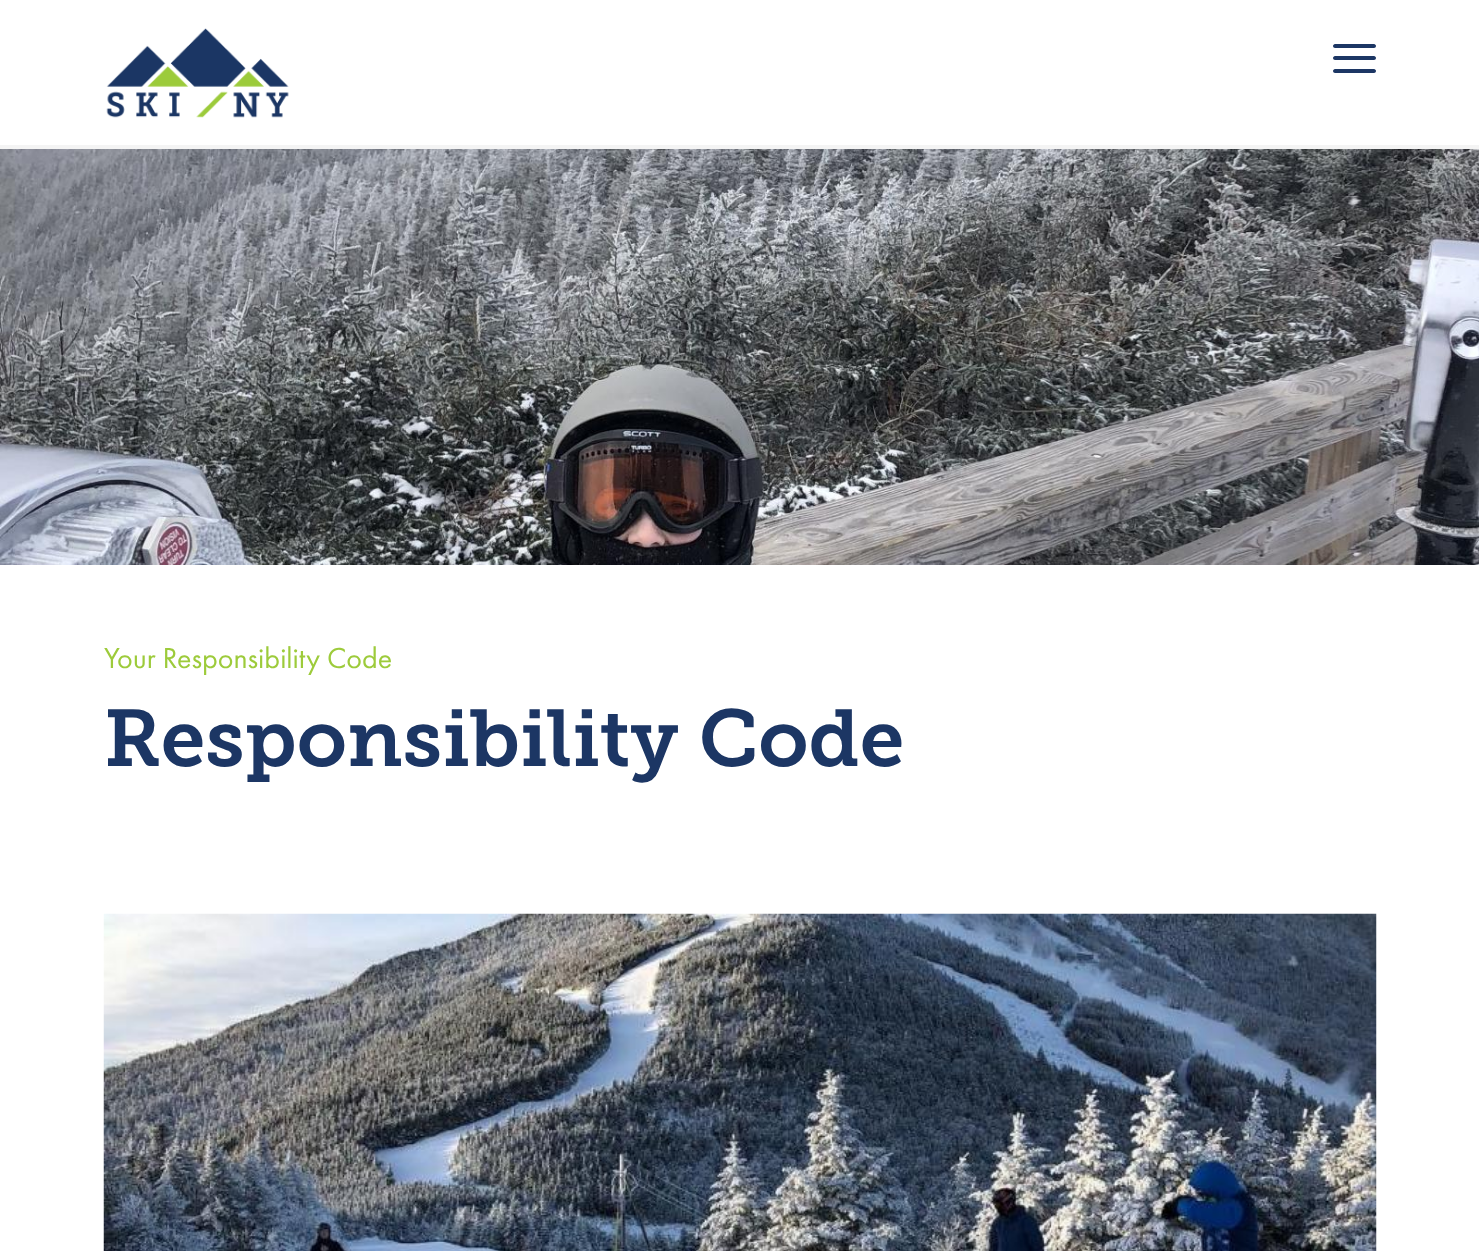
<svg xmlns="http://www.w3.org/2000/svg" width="1479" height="1251">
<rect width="100%" height="100%" fill="#fff"/>
<rect y="145" width="1479" height="4" fill="#f4f4f4"/>
<image x="106" y="28" width="183" height="90" href="media/1.png"/>
<path d="M1335 44h20v4h-20c-1 0-2-1-2-2c0-1 1-2 2-2z" fill="#1c3664"/>
<path d="M1355 44h19c1 0 2 1 2 2c0 1-1 2-2 2h-19z" fill="#1c3664"/>
<path d="M1335 56h20v4h-20c-1 0-2-1-2-2c0-1 1-2 2-2z" fill="#1c3664"/>
<path d="M1355 56h19c1 0 2 1 2 2c0 1-1 2-2 2h-19z" fill="#1c3664"/>
<path d="M1335 69h20v4h-20c-1 0-2-1-2-2c0-1 1-2 2-2z" fill="#1c3664"/>
<path d="M1355 69h19c1 0 2 1 2 2c0 1-1 2-2 2h-19z" fill="#1c3664"/>
<image x="0" y="149" width="1479" height="416" href="media/2.png"/>
<text x="104" y="668" style="font-family:Futura PT;font-size:30px;fill:#9dcb3b">Your Responsibility Code</text>
<text x="104" y="766" style="font-family:'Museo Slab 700';font-size:80px;font-weight:600;fill:#1c3664">Responsibility Code</text>
<image x="103" y="913" width="1274" height="338" href="media/3.png"/>
</svg>
